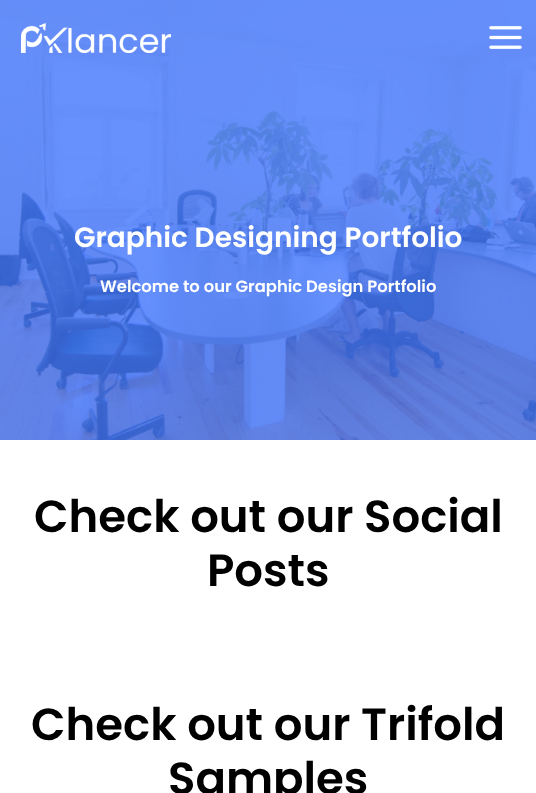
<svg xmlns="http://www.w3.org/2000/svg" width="536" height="793">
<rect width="100%" height="100%" fill="#fff"/>
<image x="0" y="0" width="536" height="440" href="media/3.png"/>
<image x="21" y="23" width="150" height="30" href="media/1.png"/>
<image x="489" y="26" width="33" height="23" href="media/2.png"/>
<text x="74" y="247" style="font-family:Poppins;font-size:28px;font-weight:600;fill:#fff">Graphic Designing Portfolio</text>
<text x="100" y="292" style="font-family:Poppins;font-size:16.4px;font-weight:600;fill:#fff">Welcome to our Graphic Design Portfolio</text>
<text x="34" y="532" style="font-family:Poppins;font-size:45px;font-weight:600;fill:#000">Check out our Social</text>
<text x="207" y="586" style="font-family:Poppins;font-size:45px;font-weight:600;fill:#000">Posts</text>
<text x="31" y="740" style="font-family:Poppins;font-size:45px;font-weight:600;fill:#000">Check out our Trifold</text>
<text x="168" y="794" style="font-family:Poppins;font-size:45px;font-weight:600;fill:#000">Samples</text>
</svg>
